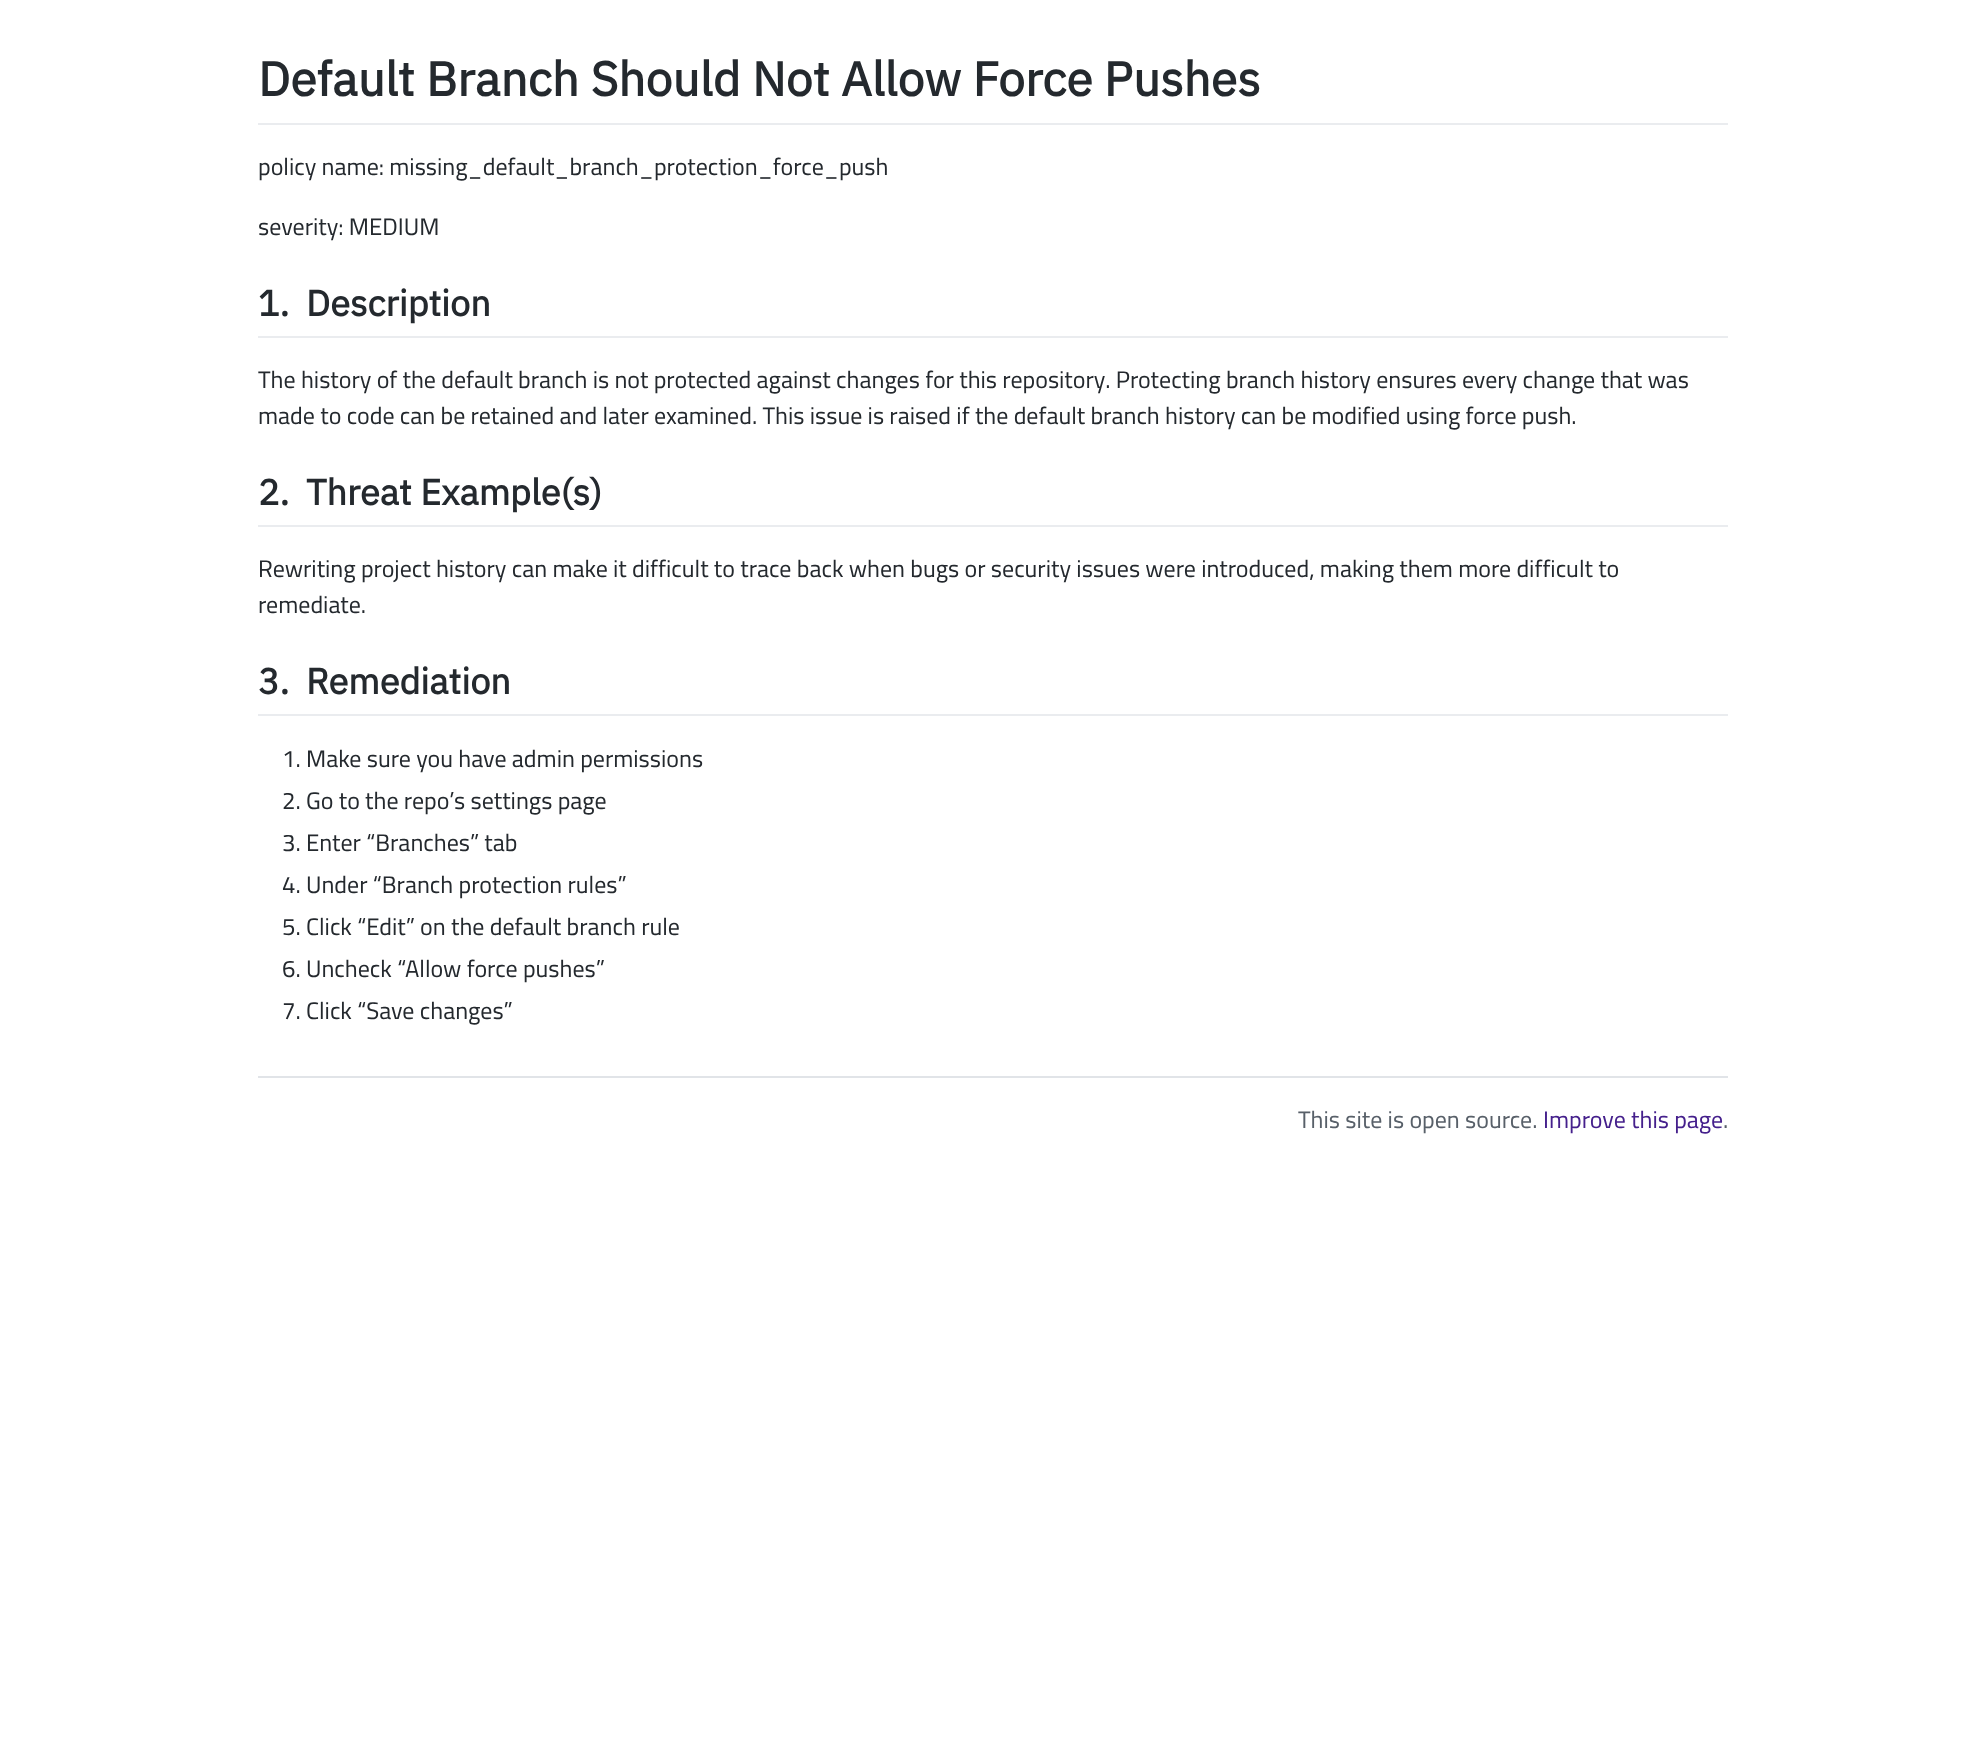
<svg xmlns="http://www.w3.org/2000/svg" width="1985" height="1764">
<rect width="100%" height="100%" fill="#fff"/>
<rect x="258" y="123" width="1470" height="2" fill="#eaecef"/>
<text x="258" y="96" style="font-family:IBM Plex Sans;font-size:48px;font-weight:bold;fill:#24292e">Default Branch Should Not Allow Force Pushes</text>
<text x="258" y="175" style="font-family:Cairo;font-size:24px;fill:#24292e">policy name: missing_default_branch_protection_force_push</text>
<text x="258" y="235" style="font-family:Cairo;font-size:24px;fill:#24292e">severity: MEDIUM</text>
<rect x="258" y="336" width="1470" height="2" fill="#eaecef"/>
<text x="258" y="316" style="font-family:IBM Plex Sans;font-size:36px;font-weight:bold;fill:#24292e">1.</text>
<text x="306" y="316" style="font-family:IBM Plex Sans;font-size:36px;font-weight:bold;fill:#24292e">Description</text>
<text x="258" y="388" style="font-family:Cairo;font-size:24px;fill:#24292e">The history of the default branch is not protected against changes for this repository. Protecting branch history ensures every change that was</text>
<text x="258" y="424" style="font-family:Cairo;font-size:24px;fill:#24292e">made to code can be retained and later examined. This issue is raised if the default branch history can be modified using force push.</text>
<rect x="258" y="525" width="1470" height="2" fill="#eaecef"/>
<text x="258" y="505" style="font-family:IBM Plex Sans;font-size:36px;font-weight:bold;fill:#24292e">2.</text>
<text x="306" y="505" style="font-family:IBM Plex Sans;font-size:36px;font-weight:bold;fill:#24292e">Threat Example(s)</text>
<text x="258" y="577" style="font-family:Cairo;font-size:24px;fill:#24292e">Rewriting project history can make it difficult to trace back when bugs or security issues were introduced, making them more difficult to</text>
<text x="258" y="613" style="font-family:Cairo;font-size:24px;fill:#24292e">remediate.</text>
<rect x="258" y="714" width="1470" height="2" fill="#eaecef"/>
<text x="258" y="694" style="font-family:IBM Plex Sans;font-size:36px;font-weight:bold;fill:#24292e">3.</text>
<text x="306" y="694" style="font-family:IBM Plex Sans;font-size:36px;font-weight:bold;fill:#24292e">Remediation</text>
<text x="282" y="767" style="font-family:Cairo;font-size:24px;fill:#24292e">1. Make sure you have admin permissions</text>
<text x="282" y="809" style="font-family:Cairo;font-size:24px;fill:#24292e">2. Go to the repo’s settings page</text>
<text x="282" y="851" style="font-family:Cairo;font-size:24px;fill:#24292e">3. Enter “Branches” tab</text>
<text x="282" y="893" style="font-family:Cairo;font-size:24px;fill:#24292e">4. Under “Branch protection rules”</text>
<text x="282" y="935" style="font-family:Cairo;font-size:24px;fill:#24292e">5. Click “Edit” on the default branch rule</text>
<text x="282" y="977" style="font-family:Cairo;font-size:24px;fill:#24292e">6. Uncheck “Allow force pushes”</text>
<text x="282" y="1019" style="font-family:Cairo;font-size:24px;fill:#24292e">7. Click “Save changes”</text>
<rect x="258" y="1076" width="1470" height="2" fill="#e1e4e8"/>
<text x="1298" y="1128" style="font-family:Cairo;font-size:24px;fill:#586069">This site is open source.</text>
<text x="1543" y="1128" style="font-family:Cairo;font-size:24px;fill:#45208c">Improve this page</text>
<text x="1723" y="1128" style="font-family:Cairo;font-size:24px;fill:#586069">.</text>
</svg>
